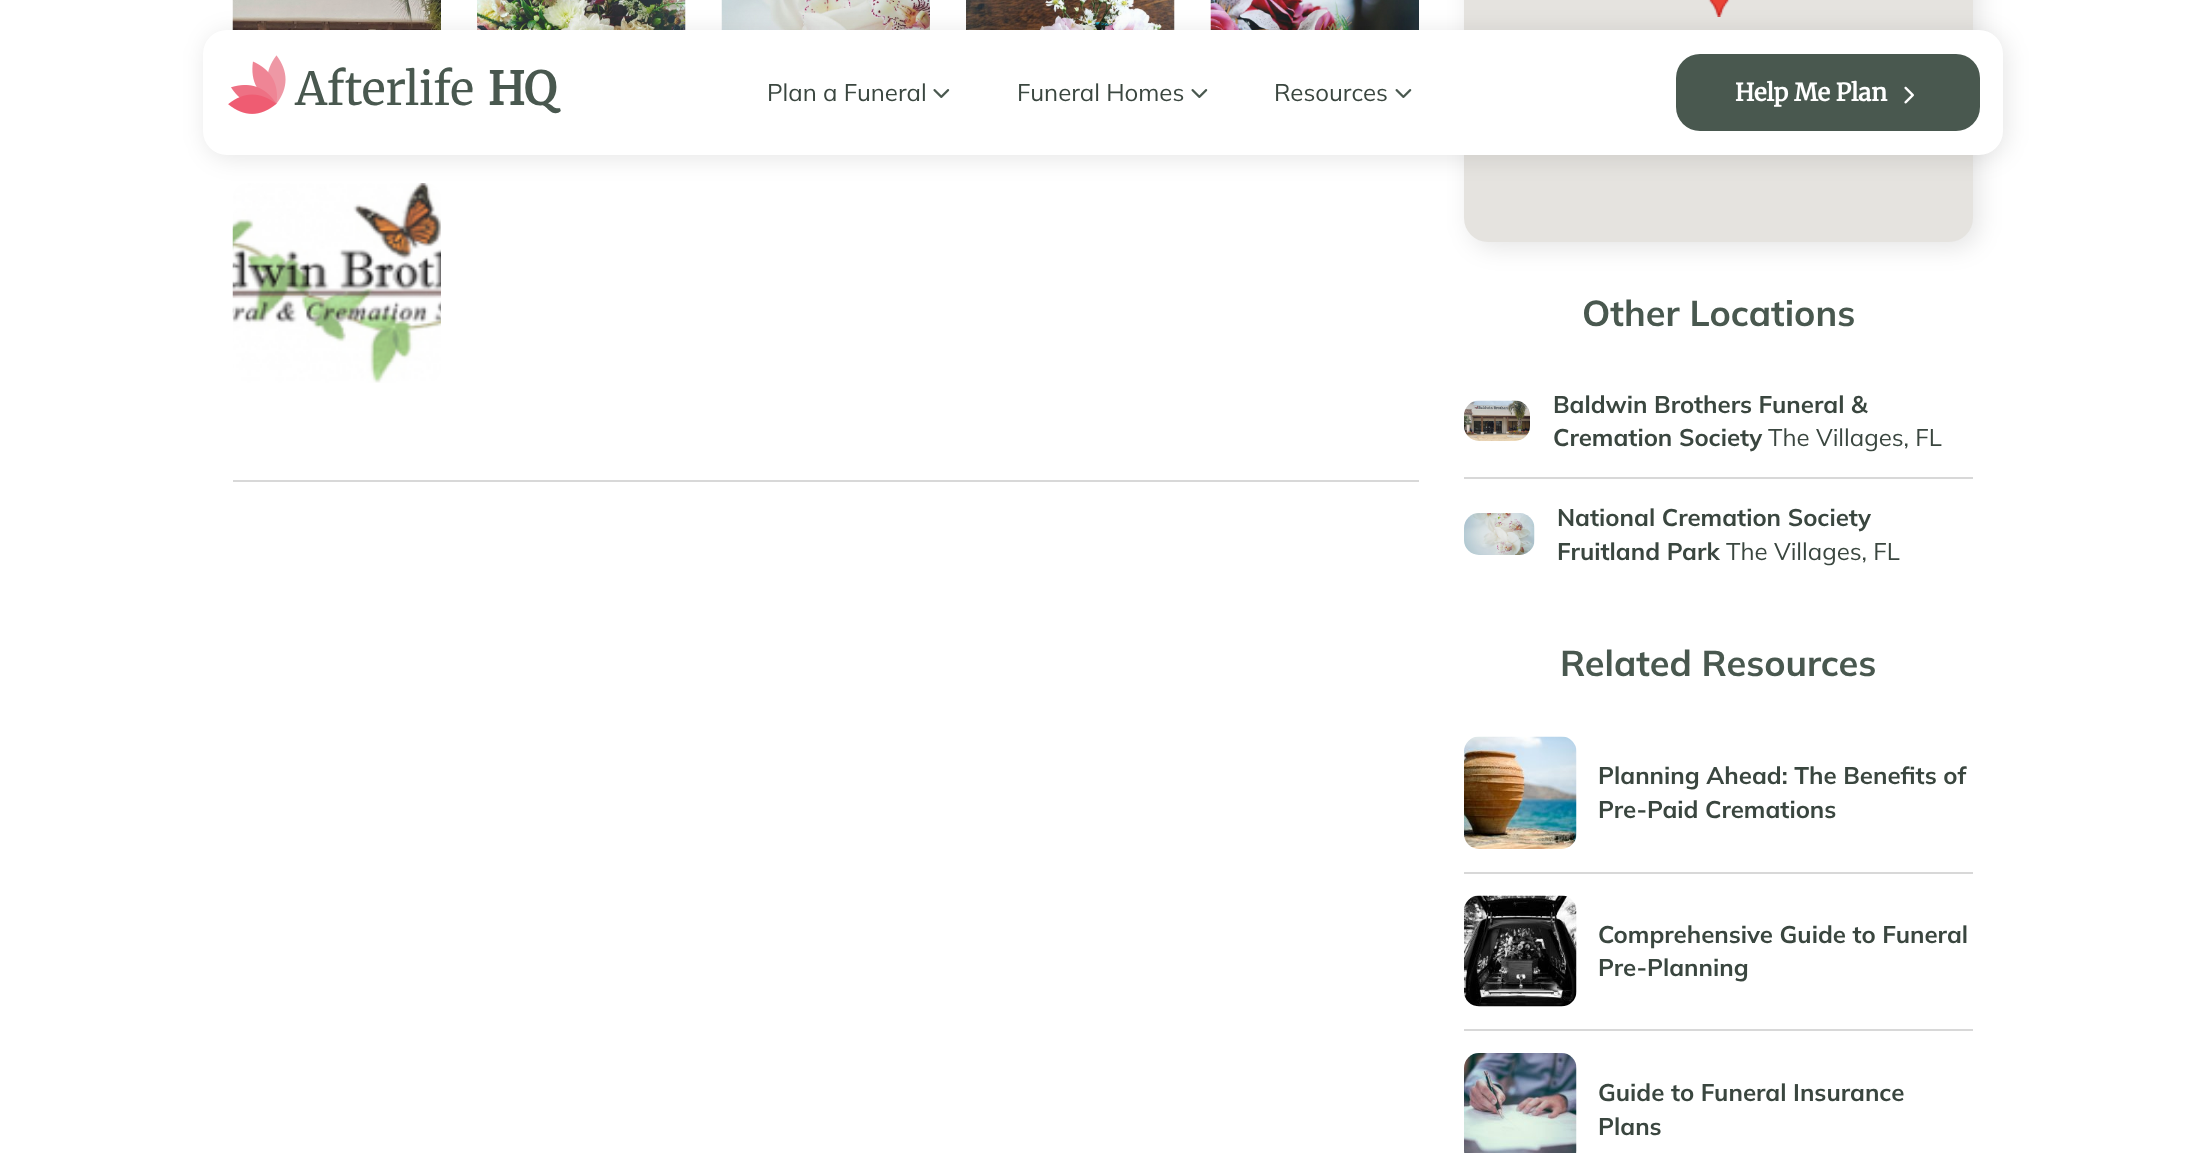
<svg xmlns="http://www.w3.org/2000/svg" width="2205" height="1153">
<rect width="100%" height="100%" fill="#fff"/>
<image x="232" y="0" width="209" height="30" href="media/6.png"/>
<image x="477" y="0" width="209" height="30" href="media/7.png"/>
<image x="721" y="0" width="209" height="30" href="media/8.png"/>
<image x="966" y="0" width="209" height="30" href="media/9.png"/>
<image x="1210" y="0" width="209" height="30" href="media/10.png"/>
<image x="232" y="183" width="209" height="200" href="media/11.png"/>
<rect x="1470" y="-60" width="509" height="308" rx="24" fill="#0000001a" filter="blur(12px)"/>
<rect x="1464" y="-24" width="509" height="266" rx="24" fill="#e5e3df"/>
<image x="1708" y="0" width="22" height="17" href="media/12.png"/>
<rect x="206" y="33" width="1800" height="125" rx="24" fill="#0000001a" filter="blur(12px)"/>
<rect x="203" y="30" width="1800" height="125" rx="24" fill="#fff"/>
<image x="228" y="55" width="58" height="59" href="media/1.png"/>
<text x="295" y="105" style="font-family:Merriweather;font-size:45.5px;font-weight:300;fill:#49584f">Afterlife</text>
<text x="488" y="105" style="font-family:Merriweather;font-size:45.5px;font-weight:bold;fill:#49584f">HQ</text>
<text x="767" y="101" style="font-family:Mulish;font-size:24px;fill:#3a463f">Plan a Funeral</text>
<image x="933" y="89" width="17" height="9" href="media/2.png"/>
<text x="1017" y="101" style="font-family:Mulish;font-size:24px;fill:#3a463f">Funeral Homes</text>
<image x="1191" y="89" width="17" height="9" href="media/3.png"/>
<text x="1274" y="101" style="font-family:Mulish;font-size:24px;fill:#3a463f">Resources</text>
<image x="1395" y="89" width="17" height="9" href="media/4.png"/>
<rect x="1676" y="54" width="304" height="77" rx="24" fill="#49584f"/>
<text x="1735" y="101" style="font-family:Merriweather;font-size:24px;font-weight:bold;fill:#fff">Help Me Plan</text>
<image x="1904" y="86" width="10" height="18" href="media/5.png"/>
<rect x="233" y="480" width="1186" height="2" fill="#d8d8d8"/>
<text x="1582" y="326" style="font-family:Mulish;font-size:36px;font-weight:bold;fill:#49584f">Other Locations</text>
<rect x="1464" y="477" width="509" height="2" fill="#d8d8d8"/>
<image x="1464" y="400" width="66" height="41" href="media/13.png"/>
<text x="1553" y="413" style="font-family:Mulish;font-size:24px;font-weight:bold;fill:#3a463f">Baldwin Brothers Funeral &amp;</text>
<text x="1553" y="446" style="font-family:Mulish;font-size:24px;font-weight:bold;fill:#3a463f">Cremation Society</text>
<text x="1768" y="446" style="font-family:Mulish;font-size:24px;fill:#3a463f">The Villages, FL</text>
<image x="1464" y="513" width="71" height="42" href="media/14.png"/>
<text x="1557" y="526" style="font-family:Mulish;font-size:24px;font-weight:bold;fill:#3a463f">National Cremation Society</text>
<text x="1557" y="560" style="font-family:Mulish;font-size:24px;font-weight:bold;fill:#3a463f">Fruitland Park</text>
<text x="1726" y="560" style="font-family:Mulish;font-size:24px;fill:#3a463f">The Villages, FL</text>
<text x="1560" y="676" style="font-family:Mulish;font-size:36px;font-weight:bold;fill:#49584f">Related Resources</text>
<rect x="1464" y="872" width="509" height="2" fill="#d8d8d8"/>
<image x="1464" y="736" width="113" height="113" href="media/15.png"/>
<text x="1598" y="784" style="font-family:Mulish;font-size:24px;font-weight:bold;fill:#3a463f">Planning Ahead: The Benefits of</text>
<text x="1598" y="818" style="font-family:Mulish;font-size:24px;font-weight:bold;fill:#3a463f">Pre-Paid Cremations</text>
<rect x="1464" y="1029" width="509" height="2" fill="#d8d8d8"/>
<image x="1464" y="895" width="113" height="112" href="media/16.png"/>
<text x="1598" y="943" style="font-family:Mulish;font-size:24px;font-weight:bold;fill:#3a463f">Comprehensive Guide to Funeral</text>
<text x="1598" y="976" style="font-family:Mulish;font-size:24px;font-weight:bold;fill:#3a463f">Pre-Planning</text>
<image x="1464" y="1053" width="113" height="100" href="media/17.png"/>
<text x="1598" y="1101" style="font-family:Mulish;font-size:24px;font-weight:bold;fill:#3a463f">Guide to Funeral Insurance</text>
<text x="1598" y="1135" style="font-family:Mulish;font-size:24px;font-weight:bold;fill:#3a463f">Plans</text>
</svg>
